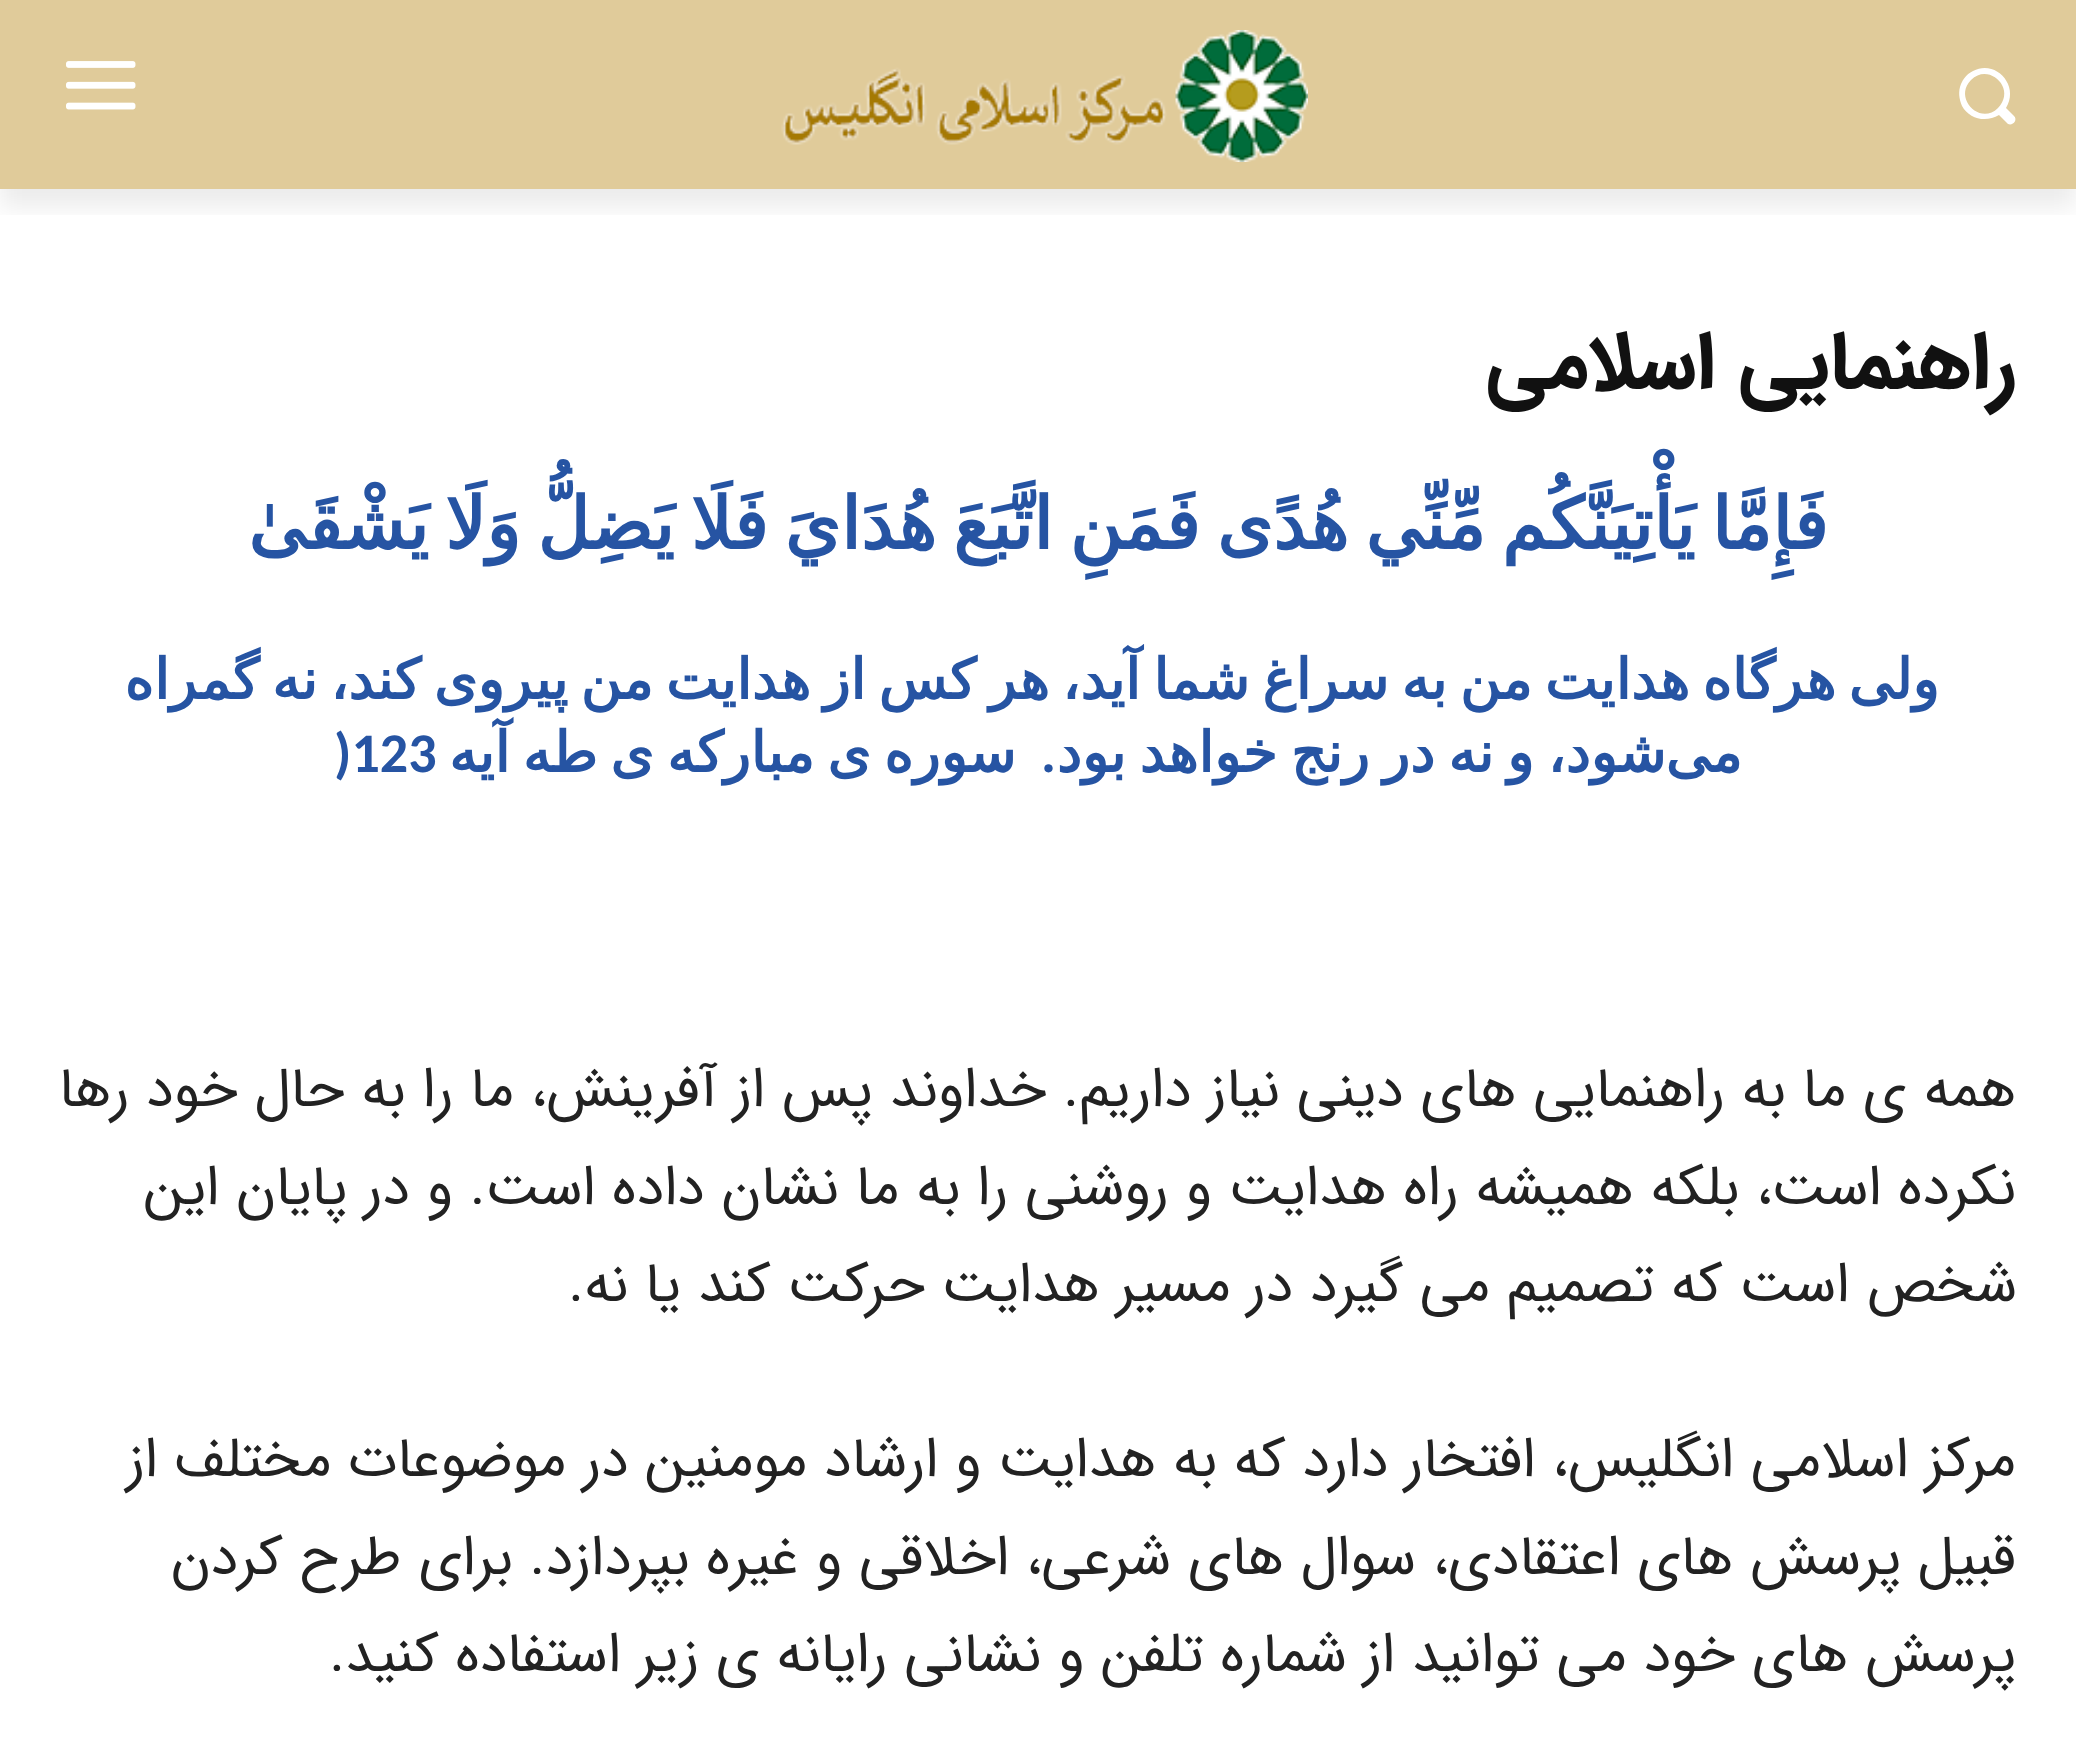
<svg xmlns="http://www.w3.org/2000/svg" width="2076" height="1754">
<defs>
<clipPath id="clip1"><rect x="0" y="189" width="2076" height="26"/></clipPath>
</defs>
<rect width="100%" height="100%" fill="#fff"/>
<rect width="2076" height="189" fill="#e0cb9a"/>
<path d="M2014 116l-8-8c14-22-10-49-33-37c-6 3-10 8-12 13c-3 7-2 15 1 22c7 13 24 17 37 9l9 9c5 2 10-4 6-8zm-16-8c-18 18-45-10-27-28c18-18 46 9 27 28z" fill="#fff"/>
<image x="781" y="30" width="527" height="132" href="media/1.png"/>
<image x="66" y="61" width="70" height="49" href="media/2.png"/>
<g clip-path="url(#clip1)">
<rect y="18" width="2076" height="189" fill="#00000014" filter="blur(12px)"/>
</g>
<text x="2016" y="387" style="font-family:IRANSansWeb;font-size:81px;font-weight:bold;direction:rtl;fill:#111">راهنمایی اسلامی</text>
<text x="1828" y="549" word-spacing="-6.5" style="font-family:DejaVu Sans;font-size:72px;font-weight:bold;direction:rtl;fill:#2654a3">فَإِمَّا يَأْتِيَنَّكُم مِّنِّي هُدًى فَمَنِ اتَّبَعَ هُدَايَ فَلَا يَضِلُّ وَلَا يَشْقَىٰ</text>
<text x="1939" y="699" word-spacing="-5.25" style="font-family:DejaVu Sans;font-size:56px;font-weight:bold;direction:rtl;fill:#2654a3">ولی هرگاه هدایت من به سراغ شما آید، هر کس از هدایت من پیروی کند، نه گمراه</text>
<text x="1666" y="772" word-spacing="-4.5" style="font-family:DejaVu Sans;font-size:56px;font-weight:bold;direction:rtl;fill:#2654a3">شود، و نه در رنج خواهد بود</text>
<text x="1742" y="772" style="font-family:DejaVu Sans;font-size:56px;font-weight:bold;direction:rtl;fill:#2654a3">می</text>
<text x="1056" y="772" style="font-family:Carlito;font-size:56px;font-weight:bold;direction:rtl;fill:#2654a3">.</text>
<text x="1016" y="772" word-spacing="-5" style="font-family:DejaVu Sans;font-size:56px;font-weight:bold;direction:rtl;fill:#2654a3">سوره ی مبارکه ی طه آیه</text>
<text x="334" y="772" style="font-family:Carlito;font-size:56px;font-weight:bold;fill:#2654a3">)123</text>
<text x="2016" y="1106" style="font-family:IRANSansWeb;font-size:56px;direction:rtl;fill:#222">همه ی ما به راهنمایی های دینی نیاز داریم. خداوند پس از آفرینش، ما را به حال خود رها</text>
<text x="2016" y="1204" style="font-family:IRANSansWeb;font-size:56px;direction:rtl;fill:#222">نکرده است، بلکه همیشه راه هدایت و روشنی را به ما نشان داده است. و در پایان این</text>
<text x="2017" y="1301" style="font-family:IRANSansWeb;font-size:56px;direction:rtl;fill:#222">شخص است که تصمیم می گیرد در مسیر هدایت حرکت کند یا نه.</text>
<text x="2016" y="1476" style="font-family:IRANSansWeb;font-size:56px;direction:rtl;fill:#222">مرکز اسلامی انگلیس، افتخار دارد که به هدایت و ارشاد مومنین در موضوعات مختلف از</text>
<text x="2016" y="1574" style="font-family:IRANSansWeb;font-size:56px;direction:rtl;fill:#222">قبیل پرسش های اعتقادی، سوال های شرعی، اخلاقی و غیره بپردازد. برای طرح کردن</text>
<text x="2016" y="1671" style="font-family:IRANSansWeb;font-size:56px;direction:rtl;fill:#222">پرسش های خود می توانید از شماره تلفن و نشانی رایانه ی زیر استفاده کنید.</text>
</svg>
